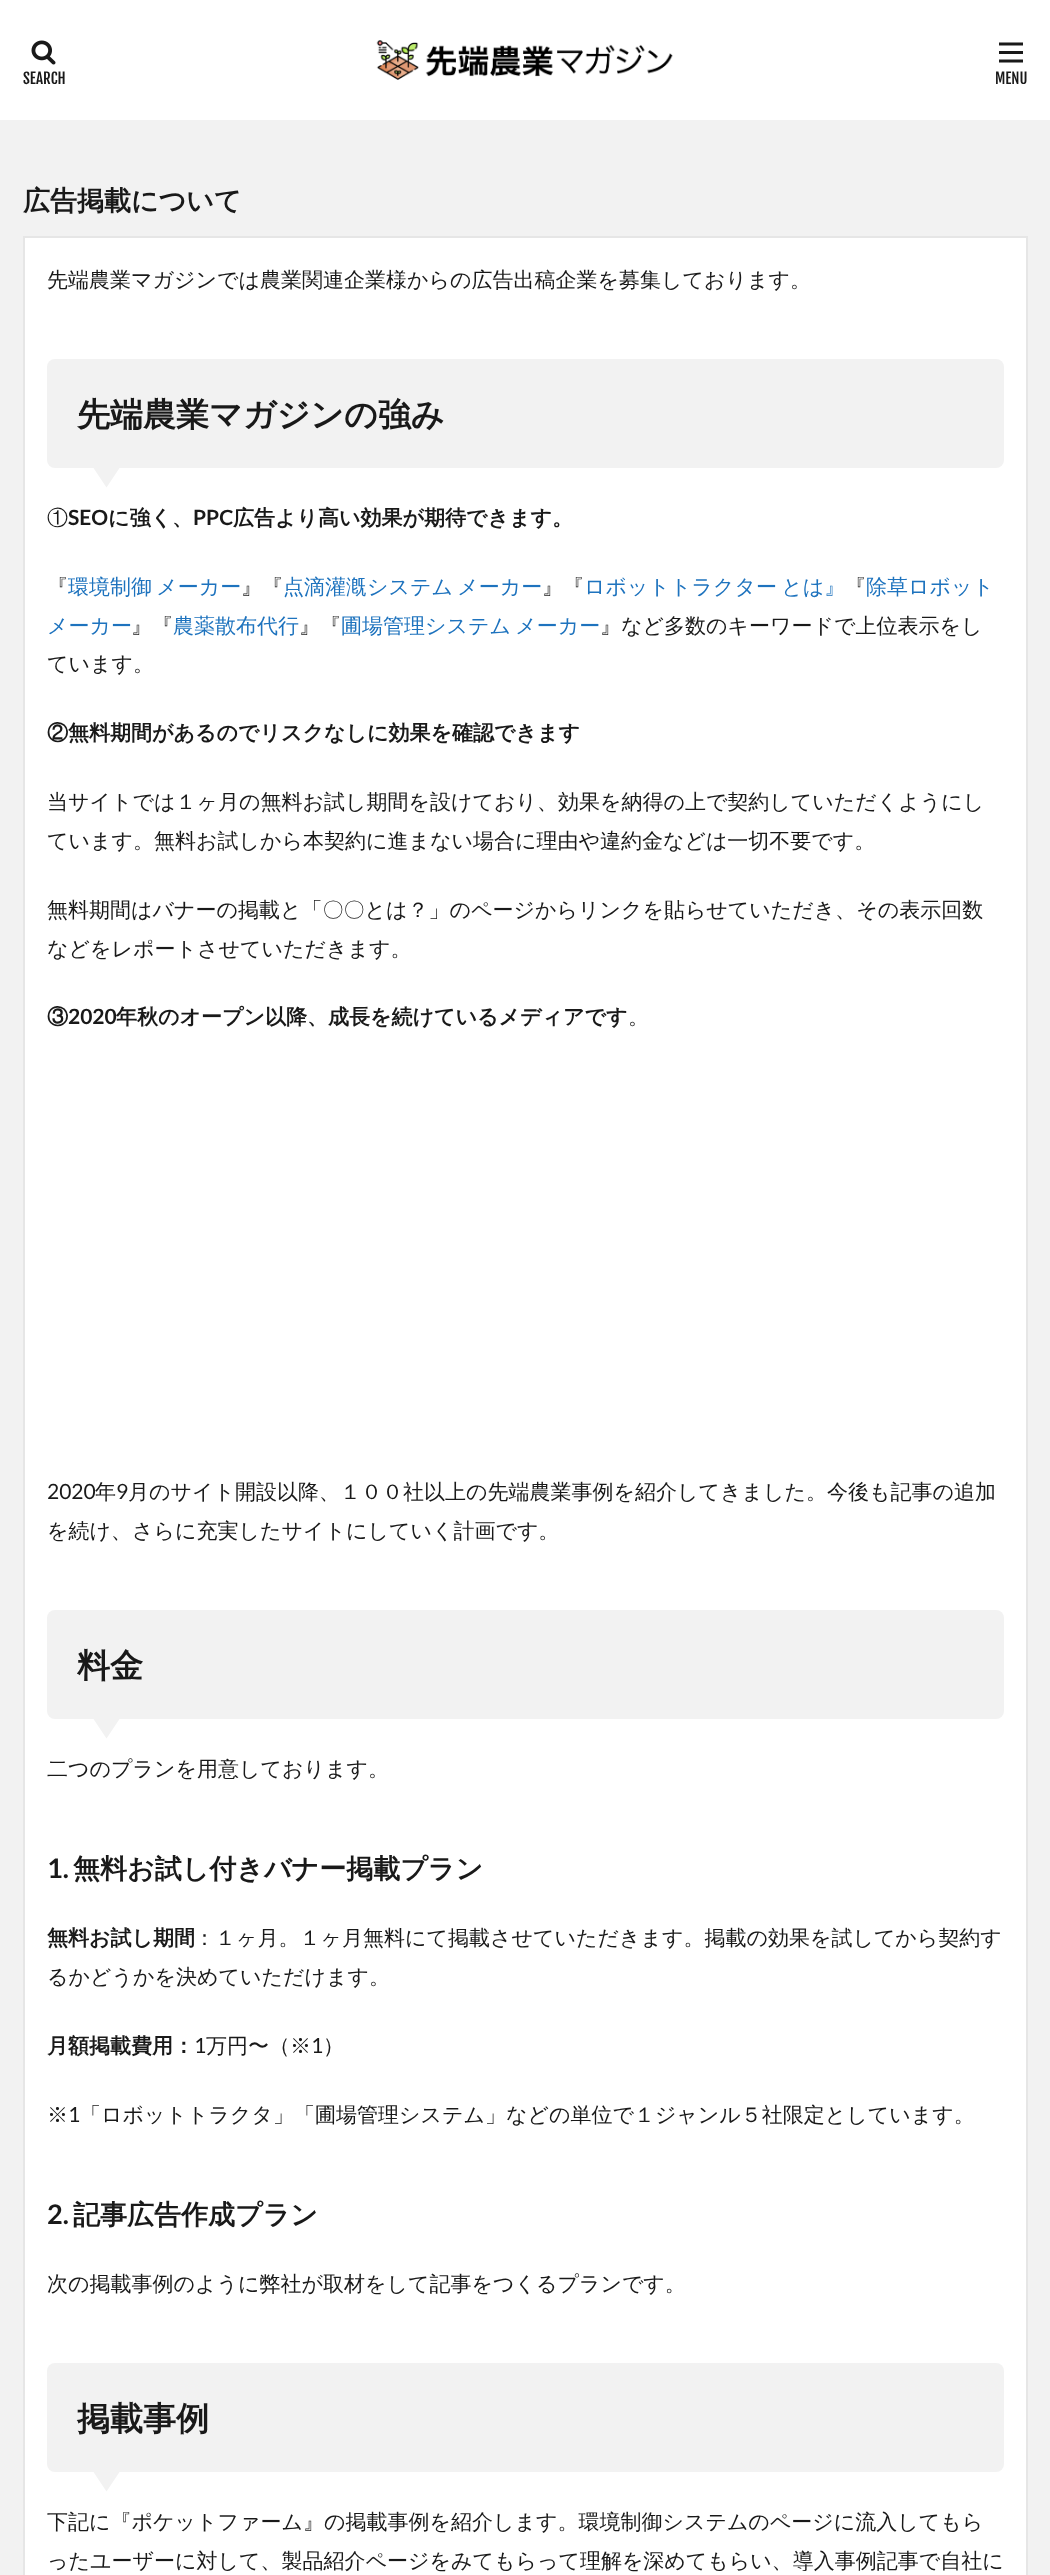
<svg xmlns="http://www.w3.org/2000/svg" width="1050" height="2575">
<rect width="100%" height="100%" fill="#f2f2f2"/>
<rect width="1050" height="120" fill="#fff"/>
<image x="31" y="40" width="25" height="25" href="media/1.png"/>
<text x="23" y="84" style="font-family:Fjalla One;font-size:15px;fill:#191919">SEARCH</text>
<image x="376" y="40" width="297" height="40" href="media/2.png"/>
<image x="999" y="42" width="24" height="21" href="media/3.png"/>
<text x="995" y="84" style="font-family:Fjalla One;font-size:15px;fill:#191919">MENU</text>
<text x="23" y="210" style="font-family:WenQuanYi Zen Hei;font-size:27px;font-weight:bold;fill:#191919">広告掲載について</text>
<rect x="24" y="237" width="1003" height="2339" fill="#fff" stroke="#e6e6e6" stroke-width="2"/>
<text x="47" y="287" style="font-family:WenQuanYi Zen Hei;font-size:21px;font-weight:500;fill:#191919">先端農業マガジンでは農業関連企業様からの広告出稿企業を募集しております。</text>
<rect x="47" y="359" width="957" height="109" rx="8" fill="#f2f2f2"/>
<text x="77" y="426" style="font-family:WenQuanYi Zen Hei;font-size:33px;font-weight:bold;fill:#191919">先端農業マガジンの強み</text>
<path d="M91.5 465h30l-15 22.5z" fill="#f2f2f2"/>
<text x="47" y="525" style="font-family:WenQuanYi Zen Hei;font-size:21px;font-weight:500;fill:#191919">①</text>
<text x="68" y="525" style="font-family:Lato;font-size:21px;font-weight:bold;fill:#191919">SEO</text>
<text x="108" y="525" style="font-family:WenQuanYi Zen Hei;font-size:21px;font-weight:bold;fill:#191919">に強く、</text>
<text x="193" y="525" style="font-family:Lato;font-size:21px;font-weight:bold;fill:#191919">PPC</text>
<text x="233" y="525" style="font-family:WenQuanYi Zen Hei;font-size:21px;font-weight:bold;fill:#191919">広告より高い効果が期待できます。</text>
<text x="47" y="594" style="font-family:WenQuanYi Zen Hei;font-size:21px;font-weight:500;fill:#191919">『</text>
<text x="68" y="594" word-spacing="-2" style="font-family:WenQuanYi Zen Hei;font-size:21px;font-weight:500;fill:#1e73be">環境制御 メーカー</text>
<text x="241" y="594" style="font-family:WenQuanYi Zen Hei;font-size:21px;font-weight:500;fill:#191919">』『</text>
<text x="283" y="594" word-spacing="-2" style="font-family:WenQuanYi Zen Hei;font-size:21px;font-weight:500;fill:#1e73be">点滴灌漑システム メーカー</text>
<text x="542" y="594" style="font-family:WenQuanYi Zen Hei;font-size:21px;font-weight:500;fill:#191919">』『</text>
<text x="584" y="594" word-spacing="-2" style="font-family:WenQuanYi Zen Hei;font-size:21px;font-weight:500;fill:#1e73be">ロボットトラクター とは』</text>
<text x="845" y="594" style="font-family:WenQuanYi Zen Hei;font-size:21px;font-weight:500;fill:#191919">『</text>
<text x="866" y="594" style="font-family:WenQuanYi Zen Hei;font-size:21px;font-weight:500;fill:#1e73be">除草ロボット</text>
<text x="47" y="633" style="font-family:WenQuanYi Zen Hei;font-size:21px;font-weight:500;fill:#1e73be">メーカー</text>
<text x="131" y="633" style="font-family:WenQuanYi Zen Hei;font-size:21px;font-weight:500;fill:#191919">』『</text>
<text x="173" y="633" style="font-family:WenQuanYi Zen Hei;font-size:21px;font-weight:500;fill:#1e73be">農薬散布代行</text>
<text x="299" y="633" style="font-family:WenQuanYi Zen Hei;font-size:21px;font-weight:500;fill:#191919">』『</text>
<text x="341" y="633" word-spacing="-2" style="font-family:WenQuanYi Zen Hei;font-size:21px;font-weight:500;fill:#1e73be">圃場管理システム メーカー</text>
<text x="600" y="633" style="font-family:WenQuanYi Zen Hei;font-size:21px;font-weight:500;fill:#191919">』など多数のキーワードで上位表示をし</text>
<text x="47" y="671" style="font-family:WenQuanYi Zen Hei;font-size:21px;font-weight:500;fill:#191919">ています。</text>
<text x="47" y="740" style="font-family:WenQuanYi Zen Hei;font-size:21px;font-weight:bold;fill:#191919">②無料期間があるのでリスクなしに効果を確認できます</text>
<text x="47" y="809" style="font-family:WenQuanYi Zen Hei;font-size:21px;font-weight:500;fill:#191919">当サイトでは１ヶ月の無料お試し期間を設けており、効果を納得の上で契約していただくようにし</text>
<text x="47" y="848" style="font-family:WenQuanYi Zen Hei;font-size:21px;font-weight:500;fill:#191919">ています。無料お試しから本契約に進まない場合に理由や違約金などは一切不要です。</text>
<text x="47" y="917" style="font-family:WenQuanYi Zen Hei;font-size:21px;font-weight:500;fill:#191919">無料期間はバナーの掲載と「〇〇とは？」のページからリンクを貼らせていただき、その表示回数</text>
<text x="47" y="956" style="font-family:WenQuanYi Zen Hei;font-size:21px;font-weight:500;fill:#191919">などをレポートさせていただきます。</text>
<text x="47" y="1024" style="font-family:WenQuanYi Zen Hei;font-size:21px;font-weight:bold;fill:#191919">③</text>
<text x="68" y="1024" style="font-family:Lato;font-size:21px;font-weight:bold;fill:#191919">2020</text>
<text x="116" y="1024" style="font-family:WenQuanYi Zen Hei;font-size:21px;font-weight:bold;fill:#191919">年秋のオープン以降、成長を続けているメディアです</text>
<text x="628" y="1024" style="font-family:WenQuanYi Zen Hei;font-size:21px;font-weight:500;fill:#191919">。</text>
<text x="47" y="1499" style="font-family:Lato;font-size:21px;fill:#191919">2020</text>
<text x="95" y="1499" style="font-family:WenQuanYi Zen Hei;font-size:21px;font-weight:500;fill:#191919">年</text>
<text x="116" y="1499" style="font-family:Lato;font-size:21px;fill:#191919">9</text>
<text x="128" y="1499" style="font-family:WenQuanYi Zen Hei;font-size:21px;font-weight:500;fill:#191919">月のサイト開設以降、１００社以上の先端農業事例を紹介してきました。今後も記事の追加</text>
<text x="47" y="1538" style="font-family:WenQuanYi Zen Hei;font-size:21px;font-weight:500;fill:#191919">を続け、さらに充実したサイトにしていく計画です。</text>
<rect x="47" y="1610" width="957" height="109" rx="8" fill="#f2f2f2"/>
<text x="77" y="1677" style="font-family:WenQuanYi Zen Hei;font-size:33px;font-weight:bold;fill:#191919">料金</text>
<path d="M91.5 1716h30l-15 22.5z" fill="#f2f2f2"/>
<text x="47" y="1776" style="font-family:WenQuanYi Zen Hei;font-size:21px;font-weight:500;fill:#191919">二つのプランを用意しております。</text>
<text x="47" y="1878" style="font-family:Lato;font-size:27px;font-weight:bold;fill:#191919">1.</text>
<text x="73" y="1878" style="font-family:WenQuanYi Zen Hei;font-size:27px;font-weight:bold;fill:#191919">無料お試し付きバナー掲載プラン</text>
<text x="47" y="1945" style="font-family:WenQuanYi Zen Hei;font-size:21px;font-weight:bold;fill:#191919">無料お試し期間</text>
<text x="194" y="1945" style="font-family:WenQuanYi Zen Hei;font-size:21px;font-weight:500;fill:#191919">：１ヶ月。１ヶ月無料にて掲載させていただきます。掲載の効果を試してから契約す</text>
<text x="47" y="1984" style="font-family:WenQuanYi Zen Hei;font-size:21px;font-weight:500;fill:#191919">るかどうかを決めていただけます。</text>
<text x="47" y="2053" style="font-family:WenQuanYi Zen Hei;font-size:21px;font-weight:bold;fill:#191919">月額掲載費用：</text>
<text x="194" y="2053" style="font-family:Lato;font-size:21px;fill:#191919">1</text>
<text x="206" y="2053" style="font-family:WenQuanYi Zen Hei;font-size:21px;font-weight:500;fill:#191919">万円〜（※</text>
<text x="311" y="2053" style="font-family:Lato;font-size:21px;fill:#191919">1</text>
<text x="323" y="2053" style="font-family:WenQuanYi Zen Hei;font-size:21px;font-weight:500;fill:#191919">）</text>
<text x="47" y="2122" style="font-family:WenQuanYi Zen Hei;font-size:21px;font-weight:500;fill:#191919">※</text>
<text x="68" y="2122" style="font-family:Lato;font-size:21px;fill:#191919">1</text>
<text x="80" y="2122" style="font-family:WenQuanYi Zen Hei;font-size:21px;font-weight:500;fill:#191919">「ロボットトラクタ」「圃場管理システム」などの単位で１ジャンル５社限定としています。</text>
<text x="47" y="2224" style="font-family:Lato;font-size:27px;font-weight:bold;fill:#191919">2.</text>
<text x="73" y="2224" style="font-family:WenQuanYi Zen Hei;font-size:27px;font-weight:bold;fill:#191919">記事広告作成プラン</text>
<text x="47" y="2291" style="font-family:WenQuanYi Zen Hei;font-size:21px;font-weight:500;fill:#191919">次の掲載事例のように弊社が取材をして記事をつくるプランです。</text>
<rect x="47" y="2363" width="957" height="109" rx="8" fill="#f2f2f2"/>
<text x="77" y="2430" style="font-family:WenQuanYi Zen Hei;font-size:33px;font-weight:bold;fill:#191919">掲載事例</text>
<path d="M91.5 2469h30l-15 22.5z" fill="#f2f2f2"/>
<text x="47" y="2529" style="font-family:WenQuanYi Zen Hei;font-size:21px;font-weight:500;fill:#191919">下記に『ポケットファーム』の掲載事例を紹介します。環境制御システムのページに流入してもら</text>
<text x="47" y="2568" style="font-family:WenQuanYi Zen Hei;font-size:21px;font-weight:500;fill:#191919">ったユーザーに対して、製品紹介ページをみてもらって理解を深めてもらい、導入事例記事で自社に</text>
</svg>
